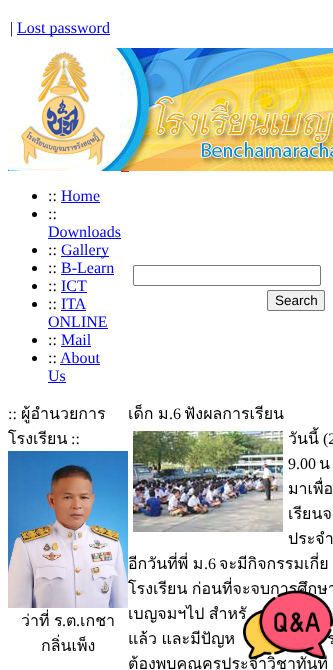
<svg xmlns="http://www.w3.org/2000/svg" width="333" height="670">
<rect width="100%" height="100%" fill="#fff"/>
<text x="10" y="33" style="font-family:Liberation Serif;font-size:16px;fill:#000">|</text>
<rect x="17" y="34" width="93" height="1" fill="#00e"/>
<text x="17" y="33" style="font-family:Liberation Serif;font-size:16px;fill:#00e">Lost password</text>
<image x="8" y="48" width="325" height="123" href="media/1.png"/>
<rect x="121" y="171" width="8" height="1" fill="#ba2f31"/>
<circle cx="34.5" cy="196.5" r="2.5" fill="#000"/>
<text x="48" y="201" style="font-family:Liberation Serif;font-size:16px;fill:#000">::</text>
<text x="61" y="201" style="font-family:Liberation Serif;font-size:16px;fill:#00e">Home</text>
<rect x="61" y="202" width="39" height="1" fill="#00e"/>
<circle cx="34.5" cy="214.5" r="2.5" fill="#000"/>
<text x="48" y="219" style="font-family:Liberation Serif;font-size:16px;fill:#000">::</text>
<text x="48" y="237" style="font-family:Liberation Serif;font-size:16px;fill:#00e">Downloads</text>
<rect x="48" y="238" width="73" height="1" fill="#00e"/>
<circle cx="34.5" cy="250.5" r="2.5" fill="#000"/>
<text x="48" y="255" style="font-family:Liberation Serif;font-size:16px;fill:#000">::</text>
<rect x="61" y="256" width="48" height="1" fill="#00e"/>
<text x="61" y="255" style="font-family:Liberation Serif;font-size:16px;fill:#00e">Gallery</text>
<circle cx="34.5" cy="268.5" r="2.5" fill="#000"/>
<text x="48" y="273" style="font-family:Liberation Serif;font-size:16px;fill:#000">::</text>
<text x="61" y="273" style="font-family:Liberation Serif;font-size:16px;fill:#00e">B-Learn</text>
<rect x="61" y="274" width="53" height="1" fill="#00e"/>
<circle cx="34.5" cy="286.5" r="2.5" fill="#000"/>
<text x="48" y="291" style="font-family:Liberation Serif;font-size:16px;fill:#000">::</text>
<text x="61" y="291" style="font-family:Liberation Serif;font-size:16px;fill:#00e">ICT</text>
<rect x="61" y="292" width="26" height="1" fill="#00e"/>
<circle cx="34.5" cy="304.5" r="2.5" fill="#000"/>
<text x="48" y="309" style="font-family:Liberation Serif;font-size:16px;fill:#000">::</text>
<text x="61" y="309" style="font-family:Liberation Serif;font-size:16px;fill:#00e">ITA</text>
<rect x="61" y="310" width="25" height="1" fill="#00e"/>
<text x="48" y="327" style="font-family:Liberation Serif;font-size:16px;fill:#00e">ONLINE</text>
<rect x="48" y="328" width="60" height="1" fill="#00e"/>
<circle cx="34.5" cy="340.5" r="2.5" fill="#000"/>
<text x="48" y="345" style="font-family:Liberation Serif;font-size:16px;fill:#000">::</text>
<text x="61" y="345" style="font-family:Liberation Serif;font-size:16px;fill:#00e">Mail</text>
<rect x="61" y="346" width="30" height="1" fill="#00e"/>
<circle cx="34.5" cy="358.5" r="2.5" fill="#000"/>
<text x="48" y="363" style="font-family:Liberation Serif;font-size:16px;fill:#000">::</text>
<text x="60" y="363" style="font-family:Liberation Serif;font-size:16px;fill:#00e">About</text>
<rect x="60" y="364" width="40" height="1" fill="#00e"/>
<text x="48" y="381" style="font-family:Liberation Serif;font-size:16px;fill:#00e">Us</text>
<rect x="48" y="382" width="18" height="1" fill="#00e"/>
<rect x="133.5" y="265.5" width="187" height="20" rx="1.5" fill="none" stroke="#767676"/>
<rect x="267.5" y="290.5" width="57" height="20" rx="1.5" fill="#efefef" stroke="#767676"/>
<text x="275" y="305" style="font-family:Liberation Sans;font-size:13.5px;fill:#000">Search</text>
<text x="8" y="419" style="font-family:Liberation Serif;font-size:16px;fill:#000">::</text>
<text x="21" y="419" style="font-family:Loma;font-size:16px;fill:#000">ผู้อำนวยการ</text>
<text x="8" y="444" style="font-family:Loma;font-size:16px;fill:#000">โรงเรียน</text>
<text x="71" y="444" style="font-family:Liberation Serif;font-size:16px;fill:#000">::</text>
<image x="8" y="451" width="120" height="157" href="media/2.png"/>
<text x="21" y="626" word-spacing="-1" style="font-family:Loma;font-size:16px;fill:#000">ว่าที่ ร</text>
<text x="62" y="626" style="font-family:Liberation Serif;font-size:16px;fill:#000">.</text>
<text x="66" y="626" style="font-family:Loma;font-size:16px;fill:#000">ต</text>
<text x="76" y="626" style="font-family:Liberation Serif;font-size:16px;fill:#000">.</text>
<text x="80" y="626" style="font-family:Loma;font-size:16px;fill:#000">เกชา</text>
<text x="41" y="651" style="font-family:Loma;font-size:16px;fill:#000">กลิ่นเพ็ง</text>
<text x="128" y="594" word-spacing="-1" style="font-family:Loma;font-size:16px;fill:#000">โรงเรียน ก่อนที่จะจบการศึกษา</text>
<text x="128" y="619" word-spacing="-1" style="font-family:Loma;font-size:16px;fill:#000">เบญจมฯไป สำหรั</text>
<text x="327" y="644" word-spacing="-1" style="font-family:Loma;font-size:16px;fill:#000">ร</text>
<text x="128" y="669" word-spacing="-1" style="font-family:Loma;font-size:16px;fill:#000">ต้องพบคุณครูประจำวิชาทันที</text>
<image x="243" y="590" width="90" height="70" href="media/3.png"/>
<text x="128" y="419" word-spacing="-1" style="font-family:Loma;font-size:16px;fill:#000">เด็ก ม</text>
<text x="169" y="419" style="font-family:Liberation Serif;font-size:16px;fill:#000">.6</text>
<text x="184" y="419" style="font-family:Loma;font-size:16px;fill:#000">ฟังผลการเรียน</text>
<image x="133" y="431" width="150" height="101" href="media/4.png"/>
<text x="288" y="444" style="font-family:Loma;font-size:16px;fill:#000">วันนี้</text>
<text x="323" y="444" style="font-family:Liberation Serif;font-size:16px;fill:#000">(2</text>
<text x="288" y="469" style="font-family:Liberation Serif;font-size:16px;fill:#000">9.00</text>
<text x="319" y="469" word-spacing="-1" style="font-family:Loma;font-size:16px;fill:#000">น</text>
<text x="288" y="494" style="font-family:Loma;font-size:16px;fill:#000">มาเพื่อ</text>
<text x="288" y="519" style="font-family:Loma;font-size:16px;fill:#000">เรียนจ</text>
<text x="288" y="544" word-spacing="-1" style="font-family:Loma;font-size:16px;fill:#000">ประจำ</text>
<text x="128" y="569" word-spacing="-1" style="font-family:Loma;font-size:16px;fill:#000">อีกวันที่พี่ ม</text>
<text x="204" y="569" style="font-family:Liberation Serif;font-size:16px;fill:#000">.6</text>
<text x="219" y="569" style="font-family:Loma;font-size:16px;fill:#000">จะมีกิจกรรมเกี่ย</text>
<text x="128" y="644" word-spacing="-1" style="font-family:Loma;font-size:16px;fill:#000">แล้ว และมีปัญห</text>
</svg>
